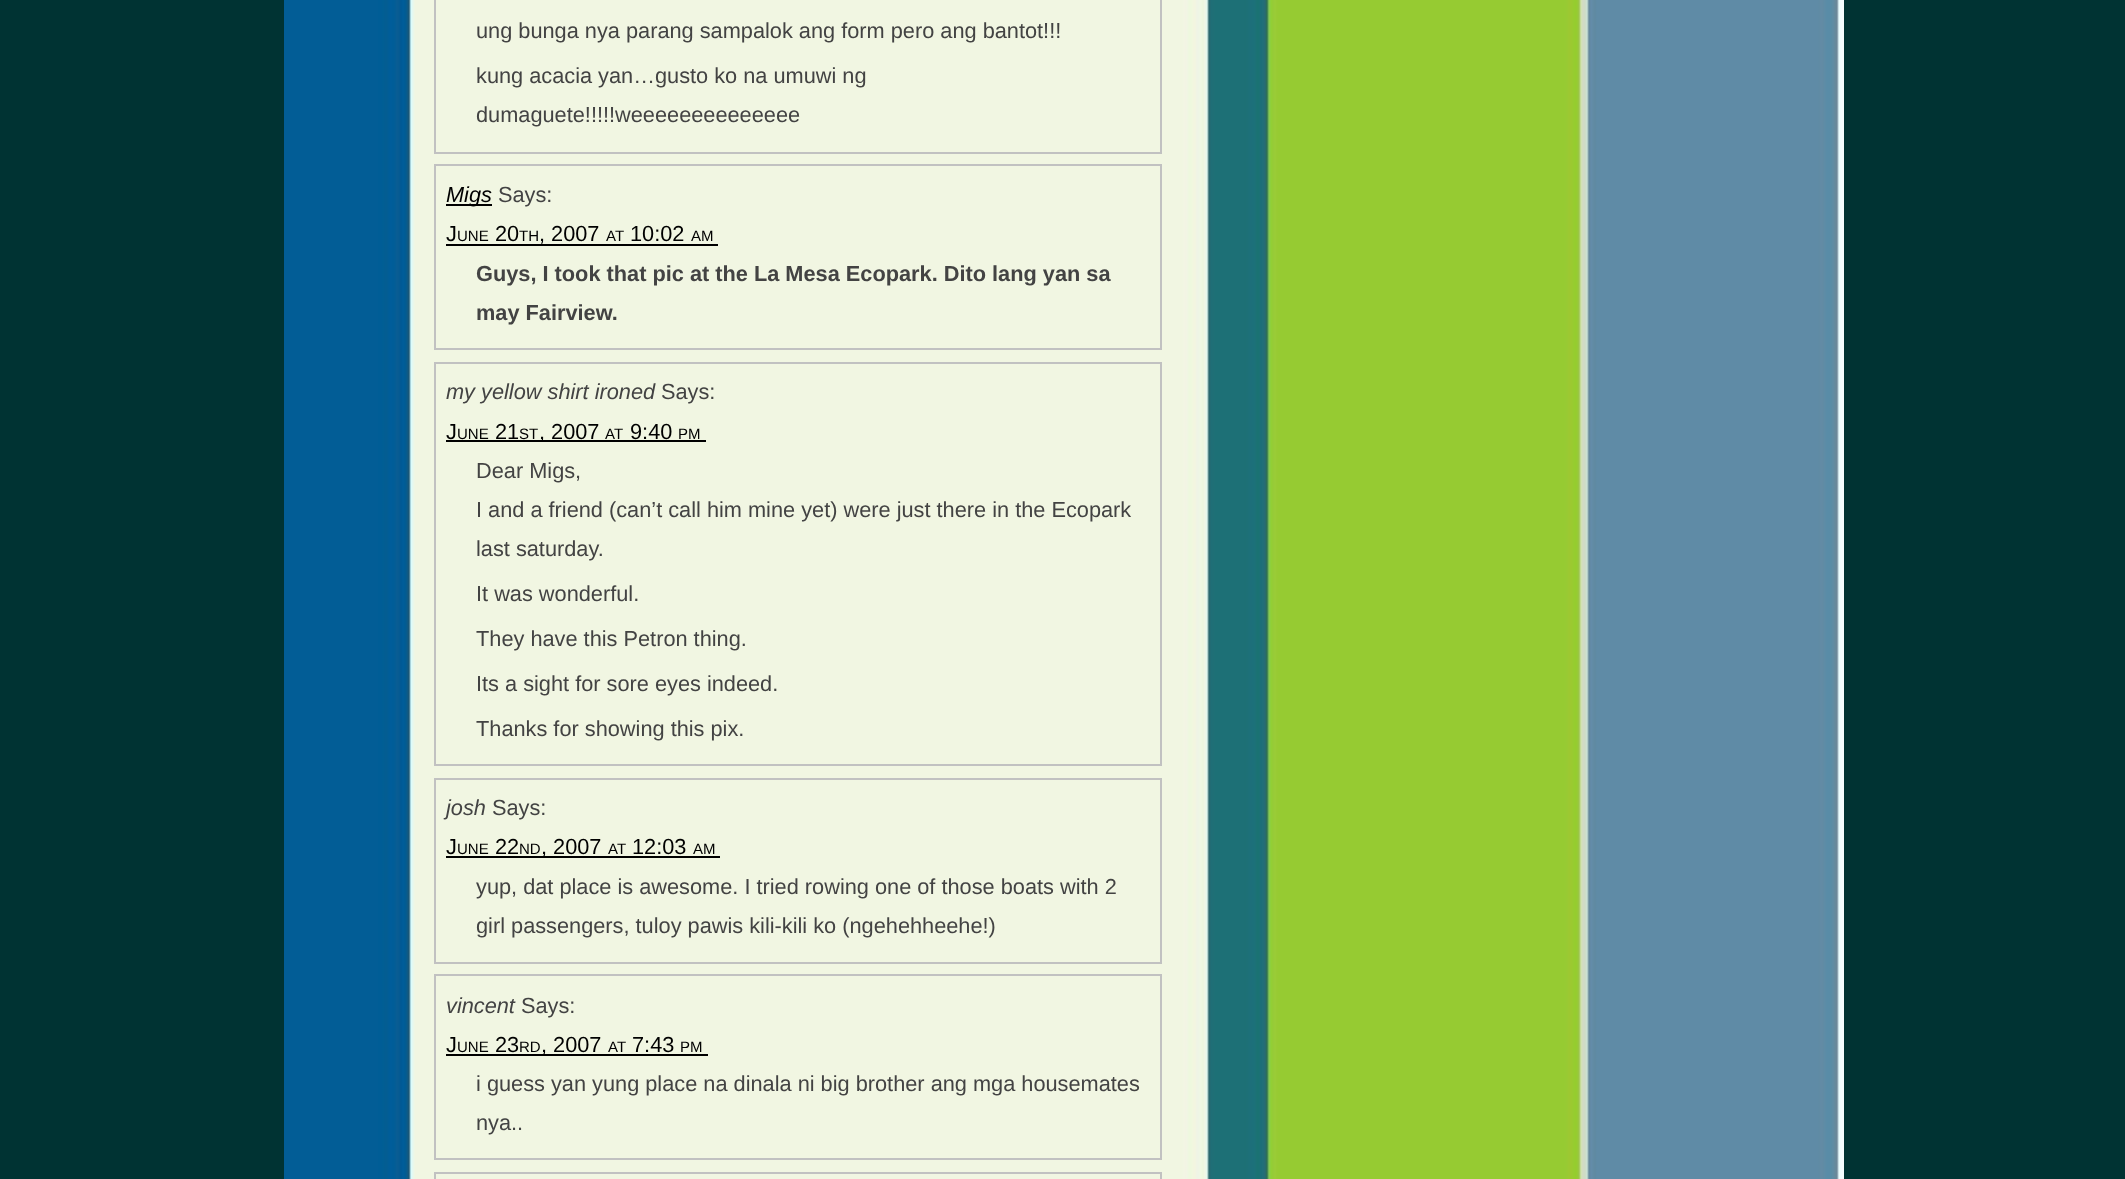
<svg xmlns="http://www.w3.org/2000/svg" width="2125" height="1179">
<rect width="100%" height="100%" fill="#033"/>
<image x="284" y="0" width="1560" height="1179" href="media/1.png"/>
<rect x="435" y="-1" width="726" height="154" fill="none" stroke="#c1c1c1" stroke-width="2"/>
<text x="476" y="38" style="font-family:Liberation Sans;font-size:21.75px;fill:#434343">ung bunga nya parang sampalok ang form pero ang bantot!!!</text>
<text x="476" y="83" style="font-family:Liberation Sans;font-size:21.75px;fill:#434343">kung acacia yan…gusto ko na umuwi ng</text>
<text x="476" y="122" style="font-family:Liberation Sans;font-size:21.75px;fill:#434343">dumaguete!!!!!weeeeeeeeeeeeee</text>
<rect x="435" y="165" width="726" height="184" fill="none" stroke="#c1c1c1" stroke-width="2"/>
<rect x="446" y="204" width="46" height="2" fill="#000"/>
<text x="446" y="202" style="font-family:Liberation Sans;font-size:21.75px;font-style:italic;fill:#000">Migs</text>
<text x="498" y="202" style="font-family:Liberation Sans;font-size:21.75px;fill:#434343">Says:</text>
<text x="446" y="241" style="font-family:Liberation Sans;font-size:21.75px;fill:#000">J</text>
<text x="457" y="241" style="font-family:Liberation Sans;font-size:15px;fill:#000">UNE</text>
<rect x="446" y="244" width="272" height="2" fill="#000"/>
<text x="495" y="241" style="font-family:Liberation Sans;font-size:21.75px;fill:#000">20</text>
<text x="519" y="241" style="font-family:Liberation Sans;font-size:15px;fill:#000">TH</text>
<text x="539" y="241" style="font-family:Liberation Sans;font-size:21.75px;fill:#000">, 2007</text>
<text x="606" y="241" style="font-family:Liberation Sans;font-size:15px;fill:#000">AT</text>
<text x="630" y="241" style="font-family:Liberation Sans;font-size:21.75px;fill:#000">10:02</text>
<text x="691" y="241" style="font-family:Liberation Sans;font-size:15px;fill:#000">AM</text>
<text x="476" y="281" style="font-family:Liberation Sans;font-size:21.75px;font-weight:bold;fill:#434343">Guys, I took that pic at the La Mesa Ecopark. Dito lang yan sa</text>
<text x="476" y="320" style="font-family:Liberation Sans;font-size:21.75px;font-weight:bold;fill:#434343">may Fairview.</text>
<rect x="435" y="363" width="726" height="402" fill="none" stroke="#c1c1c1" stroke-width="2"/>
<text x="446" y="399" style="font-family:Liberation Sans;font-size:21.75px;font-style:italic;fill:#434343">my yellow shirt ironed</text>
<text x="661" y="399" style="font-family:Liberation Sans;font-size:21.75px;fill:#434343">Says:</text>
<text x="446" y="439" style="font-family:Liberation Sans;font-size:21.75px;fill:#000">J</text>
<text x="457" y="439" style="font-family:Liberation Sans;font-size:15px;fill:#000">UNE</text>
<rect x="446" y="440" width="260" height="2" fill="#000"/>
<text x="495" y="439" style="font-family:Liberation Sans;font-size:21.75px;fill:#000">21</text>
<text x="519" y="439" style="font-family:Liberation Sans;font-size:15px;fill:#000">ST</text>
<text x="539" y="439" style="font-family:Liberation Sans;font-size:21.75px;fill:#000">, 2007</text>
<text x="605" y="439" style="font-family:Liberation Sans;font-size:15px;fill:#000">AT</text>
<text x="630" y="439" style="font-family:Liberation Sans;font-size:21.75px;fill:#000">9:40</text>
<text x="678" y="439" style="font-family:Liberation Sans;font-size:15px;fill:#000">PM</text>
<text x="476" y="478" style="font-family:Liberation Sans;font-size:21.75px;fill:#434343">Dear Migs,</text>
<text x="476" y="517" style="font-family:Liberation Sans;font-size:21.75px;fill:#434343">I and a friend (can’t call him mine yet) were just there in the Ecopark</text>
<text x="476" y="556" style="font-family:Liberation Sans;font-size:21.75px;fill:#434343">last saturday.</text>
<text x="476" y="601" style="font-family:Liberation Sans;font-size:21.75px;fill:#434343">It was wonderful.</text>
<text x="476" y="646" style="font-family:Liberation Sans;font-size:21.75px;fill:#434343">They have this Petron thing.</text>
<text x="476" y="691" style="font-family:Liberation Sans;font-size:21.75px;fill:#434343">Its a sight for sore eyes indeed.</text>
<text x="476" y="736" style="font-family:Liberation Sans;font-size:21.75px;fill:#434343">Thanks for showing this pix.</text>
<rect x="435" y="779" width="726" height="184" fill="none" stroke="#c1c1c1" stroke-width="2"/>
<text x="446" y="815" style="font-family:Liberation Sans;font-size:21.75px;font-style:italic;fill:#434343">josh</text>
<text x="492" y="815" style="font-family:Liberation Sans;font-size:21.75px;fill:#434343">Says:</text>
<text x="446" y="854" style="font-family:Liberation Sans;font-size:21.75px;fill:#000">J</text>
<text x="457" y="854" style="font-family:Liberation Sans;font-size:15px;fill:#000">UNE</text>
<rect x="446" y="856" width="274" height="2" fill="#000"/>
<text x="495" y="854" style="font-family:Liberation Sans;font-size:21.75px;fill:#000">22</text>
<text x="519" y="854" style="font-family:Liberation Sans;font-size:15px;fill:#000">ND</text>
<text x="541" y="854" style="font-family:Liberation Sans;font-size:21.75px;fill:#000">, 2007</text>
<text x="608" y="854" style="font-family:Liberation Sans;font-size:15px;fill:#000">AT</text>
<text x="632" y="854" style="font-family:Liberation Sans;font-size:21.75px;fill:#000">12:03</text>
<text x="693" y="854" style="font-family:Liberation Sans;font-size:15px;fill:#000">AM</text>
<text x="476" y="894" style="font-family:Liberation Sans;font-size:21.75px;fill:#434343">yup, dat place is awesome. I tried rowing one of those boats with 2</text>
<text x="476" y="933" style="font-family:Liberation Sans;font-size:21.75px;fill:#434343">girl passengers, tuloy pawis kili-kili ko (ngehehheehe!)</text>
<rect x="435" y="975" width="726" height="184" fill="none" stroke="#c1c1c1" stroke-width="2"/>
<text x="446" y="1013" style="font-family:Liberation Sans;font-size:21.75px;font-style:italic;fill:#434343">vincent</text>
<text x="521" y="1013" style="font-family:Liberation Sans;font-size:21.75px;fill:#434343">Says:</text>
<text x="446" y="1052" style="font-family:Liberation Sans;font-size:21.75px;fill:#000">J</text>
<text x="457" y="1052" style="font-family:Liberation Sans;font-size:15px;fill:#000">UNE</text>
<rect x="446" y="1054" width="262" height="2" fill="#000"/>
<text x="495" y="1052" style="font-family:Liberation Sans;font-size:21.75px;fill:#000">23</text>
<text x="519" y="1052" style="font-family:Liberation Sans;font-size:15px;fill:#000">RD</text>
<text x="541" y="1052" style="font-family:Liberation Sans;font-size:21.75px;fill:#000">, 2007</text>
<text x="608" y="1052" style="font-family:Liberation Sans;font-size:15px;fill:#000">AT</text>
<text x="632" y="1052" style="font-family:Liberation Sans;font-size:21.75px;fill:#000">7:43</text>
<text x="680" y="1052" style="font-family:Liberation Sans;font-size:15px;fill:#000">PM</text>
<text x="476" y="1091" style="font-family:Liberation Sans;font-size:21.75px;fill:#434343">i guess yan yung place na dinala ni big brother ang mga housemates</text>
<text x="476" y="1130" style="font-family:Liberation Sans;font-size:21.75px;fill:#434343">nya..</text>
<rect x="435" y="1173" width="726" height="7" fill="none" stroke="#c1c1c1" stroke-width="2"/>
</svg>
